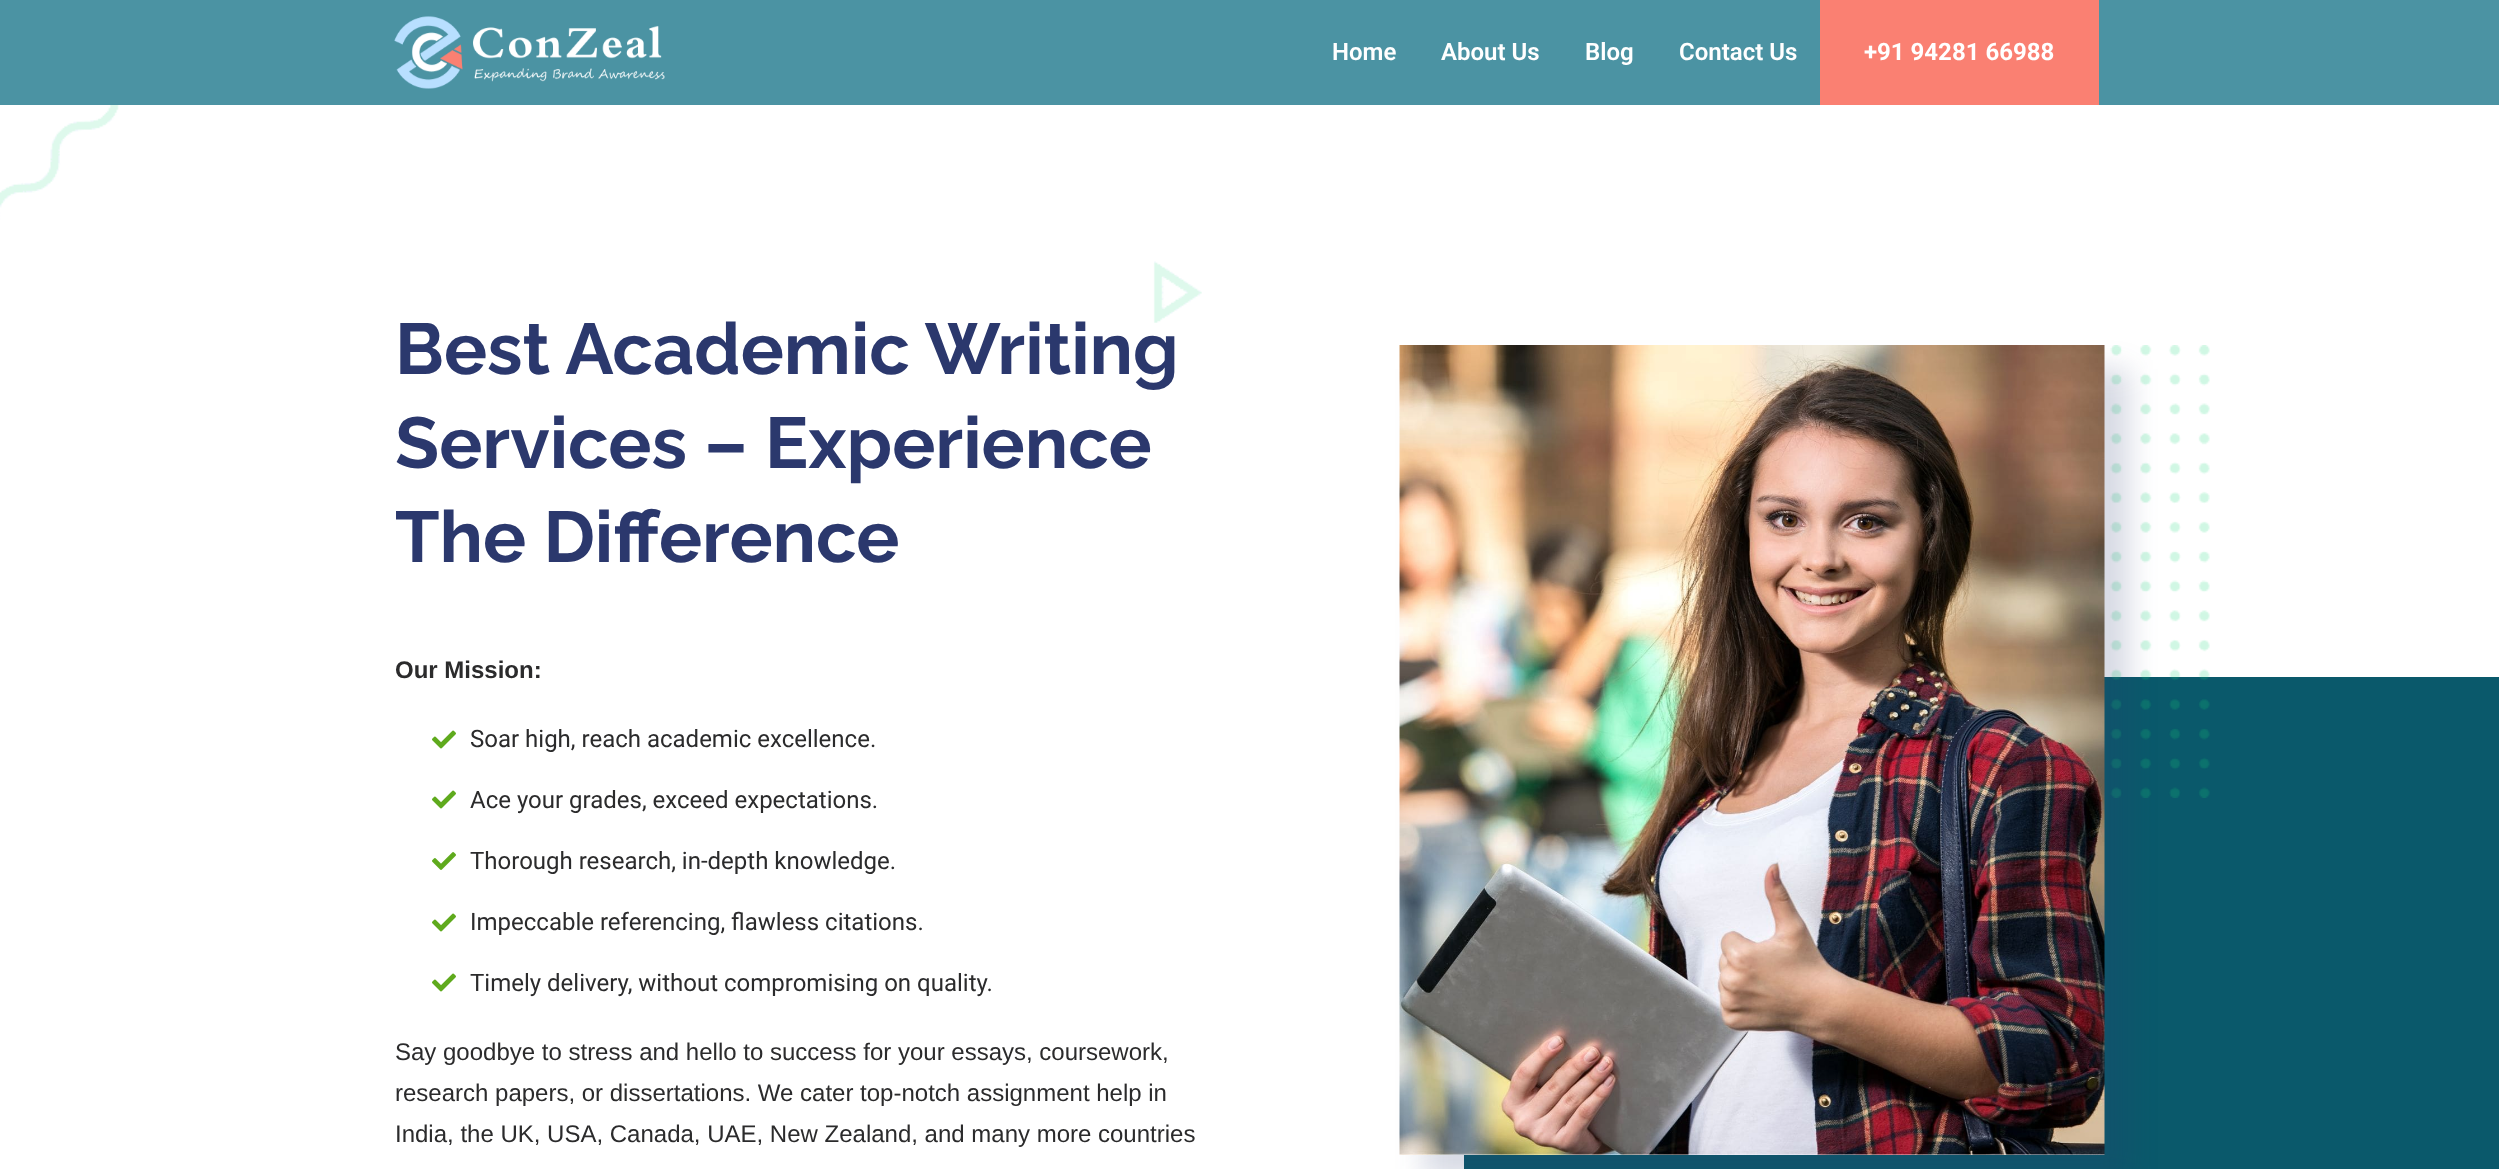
<svg xmlns="http://www.w3.org/2000/svg" width="2499" height="1169">
<rect width="100%" height="100%" fill="#fff"/>
<rect width="2499" height="105" fill="#4b93a3"/>
<image x="394" y="16" width="271" height="73" href="media/1.png"/>
<text x="1332" y="60" style="font-family:Roboto;font-size:24px;font-weight:600;fill:#fff">Home</text>
<text x="1441" y="60" style="font-family:Roboto;font-size:24px;font-weight:600;fill:#fff">About Us</text>
<text x="1585" y="60" style="font-family:Roboto;font-size:24px;font-weight:600;fill:#fff">Blog</text>
<text x="1679" y="60" style="font-family:Roboto;font-size:24px;font-weight:600;fill:#fff">Contact Us</text>
<rect x="1820" width="279" height="105" fill="#fa8072"/>
<text x="1864" y="60" style="font-family:Roboto;font-size:24px;font-weight:bold;fill:#fff">+91 94281 66988</text>
<image x="0" y="105" width="1202" height="218" href="media/2.png"/>
<text x="395" y="374" style="font-family:Raleway;font-size:72px;font-weight:bold;fill:#2b386d">Best Academic Writing</text>
<text x="395" y="468" style="font-family:Raleway;font-size:72px;font-weight:bold;fill:#2b386d">Services – Experience</text>
<text x="395" y="562" style="font-family:Raleway;font-size:72px;font-weight:bold;fill:#2b386d">The Difference</text>
<text x="395" y="678" style="font-family:Liberation Sans;font-size:24px;font-weight:bold;fill:#2b2b2c">Our Mission:</text>
<image x="432" y="730" width="24" height="19" href="media/3.png"/>
<text x="470" y="747" style="font-family:Roboto;font-size:24px;fill:#2b2b2c">Soar high, reach academic excellence.</text>
<image x="432" y="790" width="24" height="19" href="media/3.png"/>
<text x="470" y="808" style="font-family:Roboto;font-size:24px;fill:#2b2b2c">Ace your grades, exceed expectations.</text>
<image x="432" y="852" width="24" height="18" href="media/4.png"/>
<text x="470" y="869" style="font-family:Roboto;font-size:24px;fill:#2b2b2c">Thorough research, in-depth knowledge.</text>
<image x="432" y="913" width="24" height="19" href="media/3.png"/>
<text x="470" y="930" style="font-family:Roboto;font-size:24px;fill:#2b2b2c">Impeccable referencing, flawless citations.</text>
<image x="432" y="973" width="24" height="19" href="media/3.png"/>
<text x="470" y="991" style="font-family:Roboto;font-size:24px;fill:#2b2b2c">Timely delivery, without compromising on quality.</text>
<text x="395" y="1060" style="font-family:Liberation Sans;font-size:24px;fill:#2b2b2c">Say goodbye to stress and hello to success for your essays, coursework,</text>
<text x="395" y="1101" style="font-family:Liberation Sans;font-size:24px;fill:#2b2b2c">research papers, or dissertations. We cater top-notch assignment help in</text>
<text x="395" y="1142" style="font-family:Liberation Sans;font-size:24px;fill:#2b2b2c">India, the UK, USA, Canada, UAE, New Zealand, and many more countries</text>
<rect x="1464" y="677" width="1035" height="492" fill="#0a596b"/>
<image x="2110" y="345" width="100" height="453" href="media/6.png"/>
<rect x="1424" y="369" width="705" height="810" fill="#2b386d30" filter="blur(14px)"/>
<image x="1399" y="345" width="706" height="810" href="media/5.png"/>
</svg>
